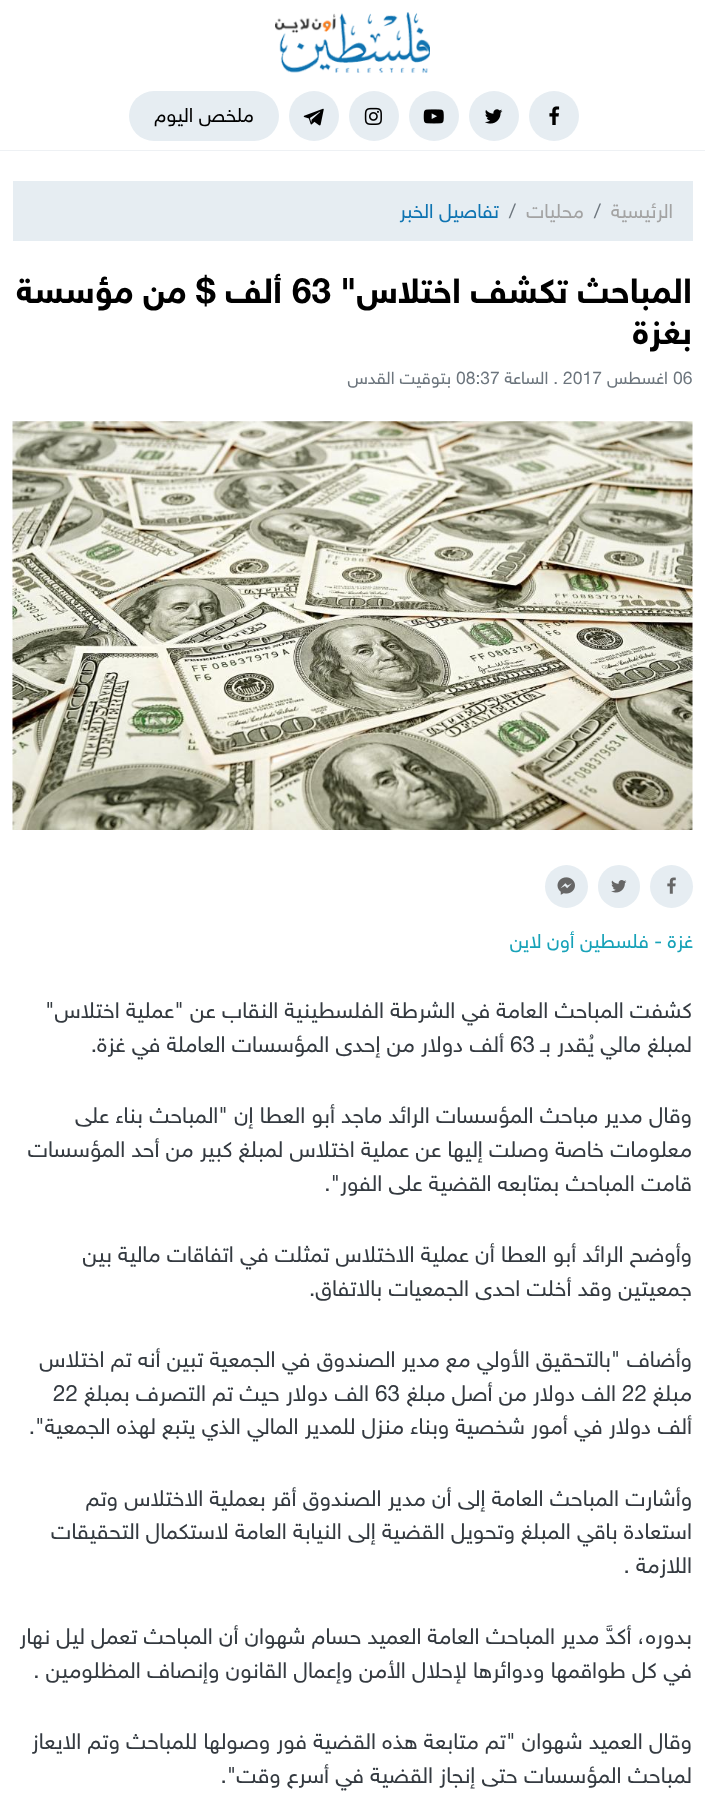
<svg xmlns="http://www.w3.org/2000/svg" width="705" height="1795">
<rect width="100%" height="100%" fill="#fff"/>
<rect y="150" width="705" height="1" fill="#eef1f4"/>
<image x="275" y="12" width="155" height="61" href="media/1.png"/>
<circle cx="554" cy="116" r="25" fill="#e6edf2"/>
<image x="549" y="106" width="11" height="19" href="media/2.png"/>
<circle cx="494" cy="116" r="25" fill="#e6edf2"/>
<image x="485" y="109" width="18" height="15" href="media/3.png"/>
<circle cx="434" cy="116" r="25" fill="#e6edf2"/>
<image x="423" y="109" width="21" height="15" href="media/4.png"/>
<circle cx="374" cy="116" r="25" fill="#e6edf2"/>
<image x="364" y="107" width="18" height="18" href="media/5.png"/>
<circle cx="314" cy="116" r="25" fill="#e6edf2"/>
<image x="303" y="108" width="21" height="18" href="media/6.png"/>
<rect x="129" y="91" width="150" height="50" rx="25" fill="#e6edf2"/>
<text x="254" y="122" style="font-family:'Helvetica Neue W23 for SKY';font-size:20px;direction:rtl;fill:#000">ملخص اليوم</text>
<rect x="13" y="181" width="680" height="60" fill="#e6edf2"/>
<text x="673" y="218" style="font-family:'Helvetica Neue W23 for SKY';font-size:20px;direction:rtl;fill:#a3a3a3">الرئيسية</text>
<text x="594" y="218" style="font-family:'Helvetica Neue W23 for SKY';font-size:20px;fill:#6c757d">/</text>
<text x="584" y="218" style="font-family:'Helvetica Neue W23 for SKY';font-size:20px;direction:rtl;fill:#a3a3a3">محليات</text>
<text x="509" y="218" style="font-family:'Helvetica Neue W23 for SKY';font-size:20px;fill:#6c757d">/</text>
<text x="499" y="218" style="font-family:'Helvetica Neue W23 for SKY';font-size:20px;direction:rtl;fill:#0e74b2">تفاصيل الخبر</text>
<text x="692" y="303" style="font-family:'Helvetica Neue W23 for SKY';font-size:35px;font-weight:bold;direction:rtl;fill:#000">المباحث تكشف اختلاس"</text>
<text x="292" y="303" style="font-family:'Helvetica Neue W23 for SKY';font-size:35px;font-weight:bold;fill:#000">63</text>
<text x="282" y="303" style="font-family:'Helvetica Neue W23 for SKY';font-size:35px;font-weight:bold;direction:rtl;fill:#000">ألف $ من مؤسسة</text>
<text x="692" y="344" style="font-family:'Helvetica Neue W23 for SKY';font-size:35px;font-weight:bold;direction:rtl;fill:#000">بغزة</text>
<text x="673" y="384" style="font-family:'Helvetica Neue W23 for SKY';font-size:17.5px;fill:#6c757d">06</text>
<text x="668" y="384" style="font-family:'Helvetica Neue W23 for SKY';font-size:17.5px;direction:rtl;fill:#6c757d">اغسطس</text>
<text x="563" y="384" style="font-family:'Helvetica Neue W23 for SKY';font-size:17.5px;fill:#6c757d">2017</text>
<text x="558" y="384" style="font-family:'Helvetica Neue W23 for SKY';font-size:17.5px;direction:rtl;fill:#6c757d">. الساعة</text>
<text x="456" y="384" style="font-family:'Helvetica Neue W23 for SKY';font-size:17.5px;fill:#6c757d">08:37</text>
<text x="451" y="384" style="font-family:'Helvetica Neue W23 for SKY';font-size:17.5px;direction:rtl;fill:#6c757d">بتوقيت القدس</text>
<image x="12" y="421" width="681" height="409" href="media/7.png"/>
<circle cx="671.5" cy="886.5" r="21.5" fill="#e6edf2"/>
<image x="667" y="877" width="9" height="17" href="media/8.png"/>
<rect x="598" y="865" width="42" height="43" rx="21" fill="#e6edf2"/>
<image x="611" y="880" width="16" height="13" href="media/9.png"/>
<circle cx="566.5" cy="886.5" r="21.5" fill="#e6edf2"/>
<image x="557" y="877" width="18" height="18" href="media/10.png"/>
<text x="693" y="948" style="font-family:'Helvetica Neue W23 for SKY';font-size:20px;direction:rtl;fill:#17a2b8">غزة - فلسطين أون لاين</text>
<text x="692" y="1018" style="font-family:'Helvetica Neue W23 for SKY';font-size:22.5px;direction:rtl;fill:#343a40">كشفت المباحث العامة في الشرطة الفلسطينية النقاب عن "عملية اختلاس"</text>
<text x="692" y="1052" style="font-family:'Helvetica Neue W23 for SKY';font-size:22.5px;direction:rtl;fill:#343a40">لمبلغ مالي يُقدر بـ</text>
<text x="510" y="1052" style="font-family:'Helvetica Neue W23 for SKY';font-size:22.5px;fill:#343a40">63</text>
<text x="504" y="1052" style="font-family:'Helvetica Neue W23 for SKY';font-size:22.5px;direction:rtl;fill:#343a40">ألف دولار من إحدى المؤسسات العاملة في غزة.</text>
<text x="692" y="1123" style="font-family:'Helvetica Neue W23 for SKY';font-size:22.5px;direction:rtl;fill:#343a40">وقال مدير مباحث المؤسسات الرائد ماجد أبو العطا إن "المباحث بناء على</text>
<text x="692" y="1157" style="font-family:'Helvetica Neue W23 for SKY';font-size:22.5px;direction:rtl;fill:#343a40">معلومات خاصة وصلت إليها عن عملية اختلاس لمبلغ كبير من أحد المؤسسات</text>
<text x="692" y="1191" style="font-family:'Helvetica Neue W23 for SKY';font-size:22.5px;direction:rtl;fill:#343a40">قامت المباحث بمتابعه القضية على الفور".</text>
<text x="692" y="1262" style="font-family:'Helvetica Neue W23 for SKY';font-size:22.5px;direction:rtl;fill:#343a40">وأوضح الرائد أبو العطا أن عملية الاختلاس تمثلت في اتفاقات مالية بين</text>
<text x="692" y="1296" style="font-family:'Helvetica Neue W23 for SKY';font-size:22.5px;direction:rtl;fill:#343a40">جمعيتين وقد أخلت احدى الجمعيات بالاتفاق.</text>
<text x="692" y="1367" style="font-family:'Helvetica Neue W23 for SKY';font-size:22.5px;direction:rtl;fill:#343a40">وأضاف "بالتحقيق الأولي مع مدير الصندوق في الجمعية تبين أنه تم اختلاس</text>
<text x="692" y="1401" style="font-family:'Helvetica Neue W23 for SKY';font-size:22.5px;direction:rtl;fill:#343a40">مبلغ</text>
<text x="622" y="1401" style="font-family:'Helvetica Neue W23 for SKY';font-size:22.5px;fill:#343a40">22</text>
<text x="616" y="1401" style="font-family:'Helvetica Neue W23 for SKY';font-size:22.5px;direction:rtl;fill:#343a40">الف دولار من أصل مبلغ</text>
<text x="375" y="1401" style="font-family:'Helvetica Neue W23 for SKY';font-size:22.5px;fill:#343a40">63</text>
<text x="369" y="1401" style="font-family:'Helvetica Neue W23 for SKY';font-size:22.5px;direction:rtl;fill:#343a40">الف دولار حيث تم التصرف بمبلغ</text>
<text x="53" y="1401" style="font-family:'Helvetica Neue W23 for SKY';font-size:22.5px;fill:#343a40">22</text>
<text x="692" y="1434" style="font-family:'Helvetica Neue W23 for SKY';font-size:22.5px;direction:rtl;fill:#343a40">ألف دولار في أمور شخصية وبناء منزل للمدير المالي الذي يتبع لهذه الجمعية".</text>
<text x="692" y="1506" style="font-family:'Helvetica Neue W23 for SKY';font-size:22.5px;direction:rtl;fill:#343a40">وأشارت المباحث العامة إلى أن مدير الصندوق أقر بعملية الاختلاس وتم</text>
<text x="692" y="1539" style="font-family:'Helvetica Neue W23 for SKY';font-size:22.5px;direction:rtl;fill:#343a40">استعادة باقي المبلغ وتحويل القضية إلى النيابة العامة لاستكمال التحقيقات</text>
<text x="692" y="1573" style="font-family:'Helvetica Neue W23 for SKY';font-size:22.5px;direction:rtl;fill:#343a40">اللازمة .</text>
<text x="692" y="1644" style="font-family:'Helvetica Neue W23 for SKY';font-size:22.5px;direction:rtl;fill:#343a40">بدوره، أكدَّ مدير المباحث العامة العميد حسام شهوان أن المباحث تعمل ليل نهار</text>
<text x="692" y="1678" style="font-family:'Helvetica Neue W23 for SKY';font-size:22.5px;direction:rtl;fill:#343a40">في كل طواقمها ودوائرها لإحلال الأمن وإعمال القانون وإنصاف المظلومين .</text>
<text x="692" y="1749" style="font-family:'Helvetica Neue W23 for SKY';font-size:22.5px;direction:rtl;fill:#343a40">وقال العميد شهوان "تم متابعة هذه القضية فور وصولها للمباحث وتم الايعاز</text>
<text x="692" y="1783" style="font-family:'Helvetica Neue W23 for SKY';font-size:22.5px;direction:rtl;fill:#343a40">لمباحث المؤسسات حتى إنجاز القضية في أسرع وقت".</text>
</svg>
